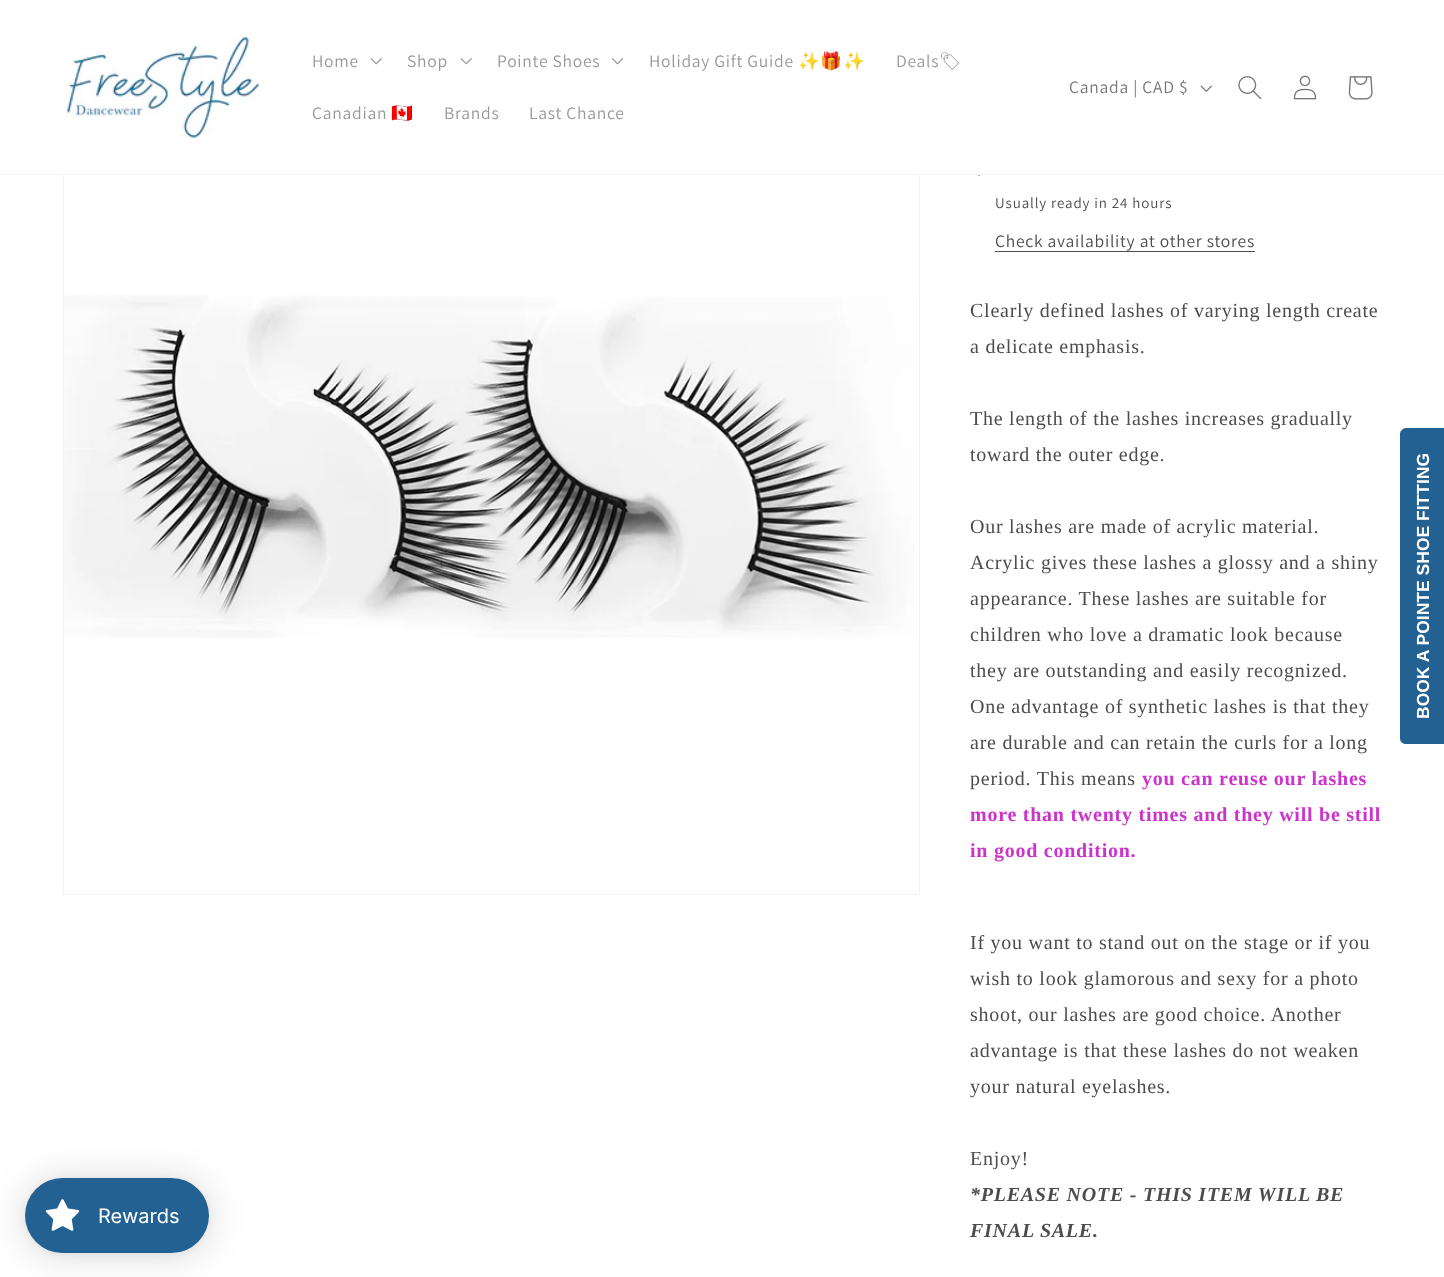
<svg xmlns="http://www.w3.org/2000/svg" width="1444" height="1277">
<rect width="100%" height="100%" fill="#fff"/>
<rect x="63.5" y="38.5" width="856" height="856" fill="none" stroke="#f3f3f3"/>
<rect x="63" y="38" width="857" height="136" fill="#fff"/>
<rect y="174" width="1444" height="1" fill="#f4f4f4"/>
<image x="62" y="35" width="200" height="104" href="media/1.png"/>
<text x="312" y="67" style="font-family:Assistant;font-size:17.5px;letter-spacing:0.75px;fill:#989898">Home</text>
<image x="370" y="58" width="12" height="7" href="media/2.png"/>
<text x="407" y="67" style="font-family:Assistant;font-size:17.5px;letter-spacing:0.75px;fill:#989898">Shop</text>
<image x="460" y="58" width="12" height="7" href="media/2.png"/>
<text x="497" y="67" style="font-family:Assistant;font-size:17.5px;letter-spacing:0.75px;fill:#989898">Pointe Shoes</text>
<image x="611" y="58" width="12" height="7" href="media/3.png"/>
<text x="649" y="67" style="font-family:Assistant;font-size:17.5px;letter-spacing:0.75px;fill:#989898">Holiday Gift Guide</text>
<text x="798" y="67" style="font-family:Noto Color Emoji;font-size:17.5px;letter-spacing:0.75px;fill:#989898">✨🎁✨</text>
<text x="896" y="67" style="font-family:Assistant;font-size:17.5px;letter-spacing:0.75px;fill:#989898">Deals</text>
<text x="939" y="67" style="font-family:Noto Emoji;font-size:17.5px;letter-spacing:0.75px;fill:#989898">🏷</text>
<text x="312" y="119" style="font-family:Assistant;font-size:17.5px;letter-spacing:0.75px;fill:#989898">Canadian</text>
<text x="391" y="119" style="font-family:Noto Color Emoji;font-size:17.5px;letter-spacing:0.75px;fill:#989898">🇨🇦</text>
<text x="444" y="119" style="font-family:Assistant;font-size:17.5px;letter-spacing:0.75px;fill:#989898">Brands</text>
<text x="529" y="119" style="font-family:Assistant;font-size:17.5px;letter-spacing:0.75px;fill:#989898">Last Chance</text>
<text x="1069" y="93" style="font-family:Assistant;font-size:17.5px;letter-spacing:0.75px;fill:#767676">Canada | CAD $</text>
<image x="1200" y="85" width="12" height="7" href="media/4.png"/>
<image x="1238" y="76" width="24" height="24" href="media/5.png"/>
<image x="1293" y="75" width="24" height="25" href="media/6.png"/>
<image x="1348" y="76" width="25" height="24" href="media/7.png"/>
<image x="64" y="295" width="851" height="344" href="media/8.png"/>
<image x="976" y="175" width="6" height="2" href="media/9.png"/>
<text x="995" y="208" style="font-family:Assistant;font-size:15px;letter-spacing:0.9px;fill:#4d4d4d">Usually ready in 24 hours</text>
<text x="995" y="247" style="font-family:Assistant;font-size:17.5px;letter-spacing:0.75px;fill:#4d4d4d">Check availability at other stores</text>
<rect x="995" y="251" width="260" height="1" fill="#4d4d4d"/>
<text x="970" y="317" style="font-family:Liberation Serif;font-size:20px;letter-spacing:0.75px;fill:#4d4d4d">Clearly defined lashes of varying length create</text>
<text x="970" y="353" style="font-family:Liberation Serif;font-size:20px;letter-spacing:0.75px;fill:#4d4d4d">a delicate emphasis.</text>
<text x="970" y="425" style="font-family:Liberation Serif;font-size:20px;letter-spacing:0.75px;fill:#4d4d4d">The length of the lashes increases gradually</text>
<text x="970" y="461" style="font-family:Liberation Serif;font-size:20px;letter-spacing:0.75px;fill:#4d4d4d">toward the outer edge.</text>
<text x="970" y="533" style="font-family:Liberation Serif;font-size:20px;letter-spacing:0.75px;fill:#4d4d4d">Our lashes are made of acrylic material.</text>
<text x="970" y="569" style="font-family:Liberation Serif;font-size:20px;letter-spacing:0.75px;fill:#4d4d4d">Acrylic gives these lashes a glossy and a shiny</text>
<text x="970" y="605" style="font-family:Liberation Serif;font-size:20px;letter-spacing:0.75px;fill:#4d4d4d">appearance. These lashes are suitable for</text>
<text x="970" y="641" style="font-family:Liberation Serif;font-size:20px;letter-spacing:0.75px;fill:#4d4d4d">children who love a dramatic look because</text>
<text x="970" y="677" style="font-family:Liberation Serif;font-size:20px;letter-spacing:0.75px;fill:#4d4d4d">they are outstanding and easily recognized.</text>
<text x="970" y="713" style="font-family:Liberation Serif;font-size:20px;letter-spacing:0.75px;fill:#4d4d4d">One advantage of synthetic lashes is that they</text>
<text x="970" y="749" style="font-family:Liberation Serif;font-size:20px;letter-spacing:0.75px;fill:#4d4d4d">are durable and can retain the curls for a long</text>
<text x="970" y="785" style="font-family:Liberation Serif;font-size:20px;letter-spacing:0.75px;fill:#4d4d4d">period. This means</text>
<text x="1142" y="785" style="font-family:Liberation Serif;font-size:20px;font-weight:bold;letter-spacing:0.75px;fill:#c3c">you can reuse our lashes</text>
<text x="970" y="821" style="font-family:Liberation Serif;font-size:20px;font-weight:bold;letter-spacing:0.75px;fill:#c3c">more than twenty times and they will be still</text>
<text x="970" y="857" style="font-family:Liberation Serif;font-size:20px;font-weight:bold;letter-spacing:0.75px;fill:#c3c">in good condition.</text>
<text x="970" y="949" style="font-family:Liberation Serif;font-size:20px;letter-spacing:0.75px;fill:#4d4d4d">If you want to stand out on the stage or if you</text>
<text x="970" y="985" style="font-family:Liberation Serif;font-size:20px;letter-spacing:0.75px;fill:#4d4d4d">wish to look glamorous and sexy for a photo</text>
<text x="970" y="1021" style="font-family:Liberation Serif;font-size:20px;letter-spacing:0.75px;fill:#4d4d4d">shoot, our lashes are good choice. Another</text>
<text x="970" y="1057" style="font-family:Liberation Serif;font-size:20px;letter-spacing:0.75px;fill:#4d4d4d">advantage is that these lashes do not weaken</text>
<text x="970" y="1093" style="font-family:Liberation Serif;font-size:20px;letter-spacing:0.75px;fill:#4d4d4d">your natural eyelashes.</text>
<text x="970" y="1165" style="font-family:Liberation Serif;font-size:20px;letter-spacing:0.75px;fill:#4d4d4d">Enjoy!</text>
<text x="970" y="1201" style="font-family:Liberation Serif;font-size:20px;font-weight:bold;font-style:italic;letter-spacing:0.75px;fill:#4d4d4d">*PLEASE NOTE - THIS ITEM WILL BE</text>
<text x="970" y="1237" style="font-family:Liberation Serif;font-size:20px;font-weight:bold;font-style:italic;letter-spacing:0.75px;fill:#4d4d4d">FINAL SALE.</text>
<path d="M1400 738v-304c0-3 3-6 6-6h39v316h-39c-3 0-6-2-6-6z" fill="#236192"/>
<text x="1429" y="719" transform="rotate(-90 1429 719)" style="font-family:Liberation Sans;font-size:17.5px;font-weight:bold;fill:#fff">BOOK A POINTE SHOE FITTING</text>
<rect x="25" y="1180" width="184" height="75" rx="37.5" fill="#00000026" filter="blur(19px)"/>
<rect x="25" y="1179" width="184" height="75" rx="37.5" fill="#0000000d" filter="blur(4px)"/>
<rect x="25" y="1178" width="184" height="75" rx="37.5" fill="#236192"/>
<image x="45" y="1199" width="35" height="32" href="media/10.png"/>
<text x="98" y="1223" style="font-family:Inter;font-size:20px;fill:#fff">Rewards</text>
</svg>
